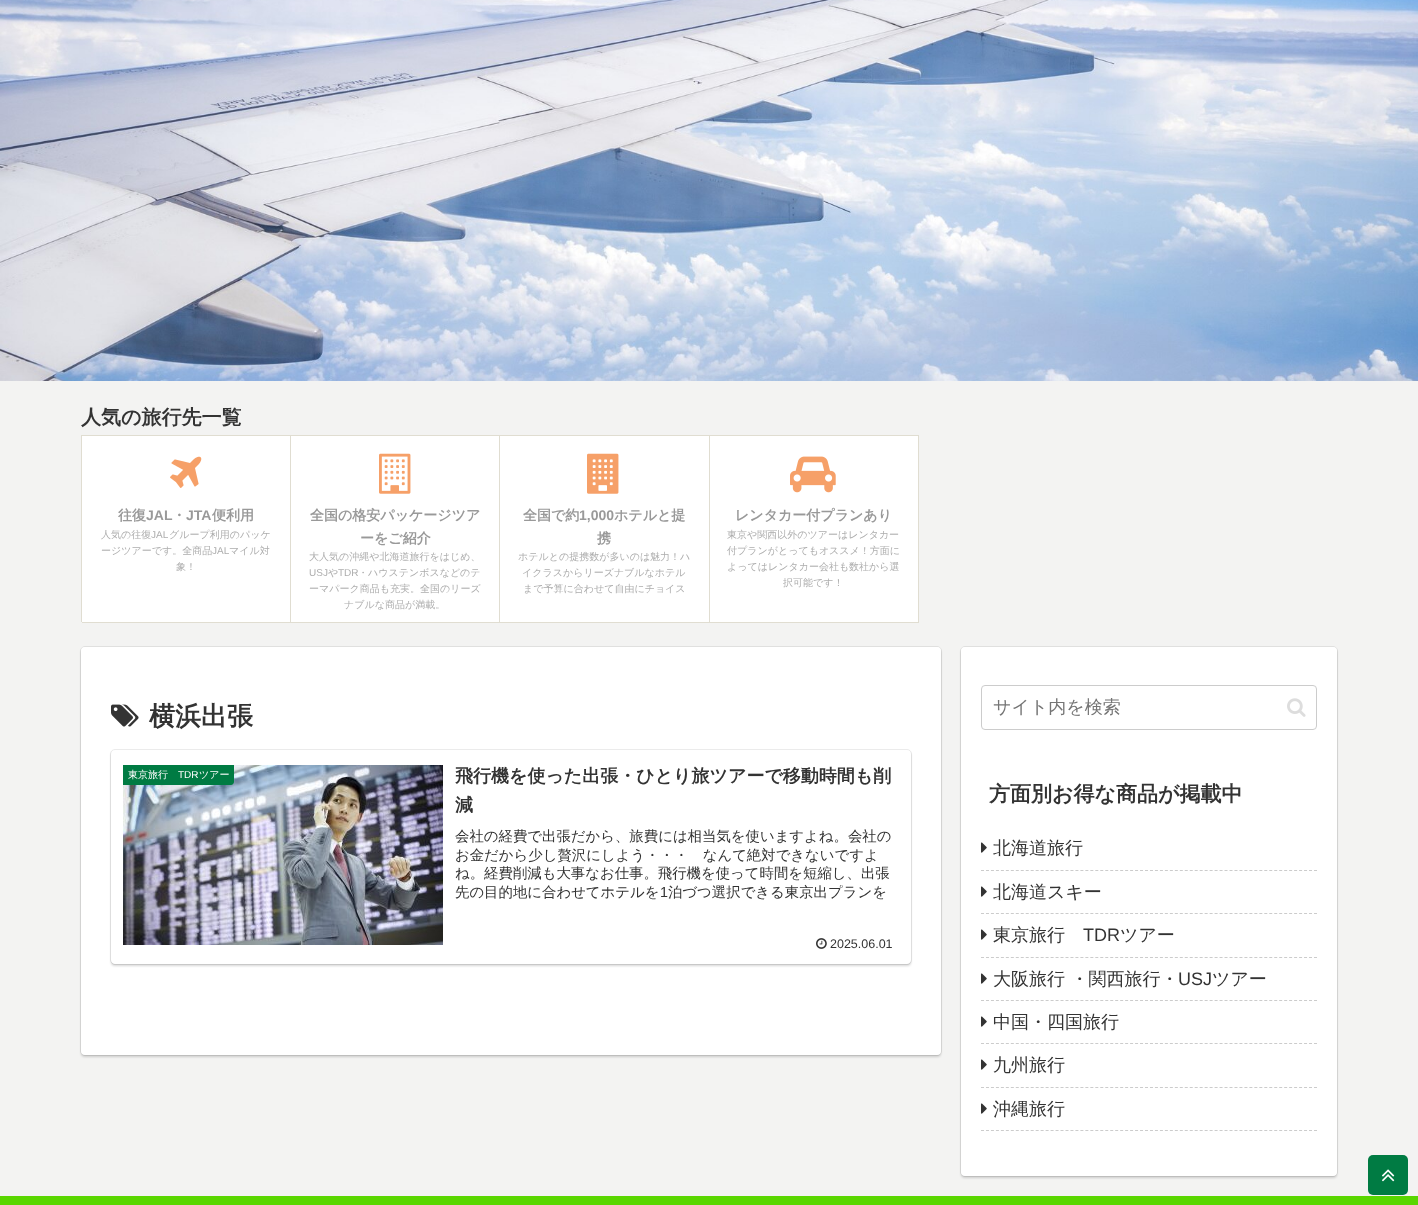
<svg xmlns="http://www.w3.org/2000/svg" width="1418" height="1205">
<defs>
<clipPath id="clip1"><rect x="81" y="435" width="209" height="187"/></clipPath>
<clipPath id="clip2"><rect x="290" y="435" width="209" height="187"/></clipPath>
<clipPath id="clip3"><rect x="499" y="435" width="210" height="187"/></clipPath>
<clipPath id="clip4"><rect x="709" y="435" width="209" height="187"/></clipPath>
<clipPath id="clip5"><path d="M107 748h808v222h-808zm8 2h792c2 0 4 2 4 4v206c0 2-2 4-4 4h-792c-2 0-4-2-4-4v-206c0-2 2-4 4-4z" clip-rule="evenodd"/></clipPath>
</defs>
<rect width="100%" height="100%" fill="#f3f3f2"/>
<image x="0" y="0" width="1418" height="381" href="media/1.png"/>
<text x="81" y="424" style="font-family:WenQuanYi Zen Hei;font-size:20px;font-weight:bold;fill:#333">人気の旅行先一覧</text>
<path d="M82 622v1h209v-187h-1v186z" fill="#e0ddd1"/>
<rect x="82" y="436" width="208" height="186" fill="#fff"/>
<g clip-path="url(#clip1)">
<path d="M-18 336h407v385h-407zm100 100h209v187h-209z" fill="#e0ddd1" fill-rule="evenodd"/>
</g>
<image x="170" y="456" width="32" height="32" href="media/2.png"/>
<text x="118" y="520" style="font-family:WenQuanYi Zen Hei;font-size:14px;font-weight:bold;fill:#999">往復</text>
<text x="146" y="520" style="font-family:Liberation Sans;font-size:14px;font-weight:bold;fill:#999">JAL</text>
<text x="172" y="520" style="font-family:WenQuanYi Zen Hei;font-size:14px;font-weight:bold;fill:#999">・</text>
<text x="186" y="520" style="font-family:Liberation Sans;font-size:14px;font-weight:bold;fill:#999">JTA</text>
<text x="212" y="520" style="font-family:WenQuanYi Zen Hei;font-size:14px;font-weight:bold;fill:#999">便利用</text>
<text x="101" y="538" style="font-family:WenQuanYi Zen Hei;font-size:10px;font-weight:500;fill:#adadad">人気の往復</text>
<text x="151" y="538" style="font-family:Liberation Sans;font-size:10px;fill:#adadad">JAL</text>
<text x="169" y="538" style="font-family:WenQuanYi Zen Hei;font-size:10px;font-weight:500;fill:#adadad">グループ利用のパッケ</text>
<text x="101" y="554" style="font-family:WenQuanYi Zen Hei;font-size:10px;font-weight:500;fill:#adadad">ージツアーです。全商品</text>
<text x="212" y="554" style="font-family:Liberation Sans;font-size:10px;fill:#adadad">JAL</text>
<text x="229" y="554" style="font-family:WenQuanYi Zen Hei;font-size:10px;font-weight:500;fill:#adadad">マイル対</text>
<text x="176" y="570" style="font-family:WenQuanYi Zen Hei;font-size:10px;font-weight:500;fill:#adadad">象！</text>
<path d="M291 622v1h209v-187h-1v186z" fill="#e0ddd1"/>
<rect x="291" y="436" width="208" height="186" fill="#fff"/>
<g clip-path="url(#clip2)">
<path d="M191 336h407v385h-407zm100 100h209v187h-209z" fill="#e0ddd1" fill-rule="evenodd"/>
</g>
<image x="379" y="453" width="32" height="41" href="media/3.png"/>
<text x="310" y="520" style="font-family:WenQuanYi Zen Hei;font-size:14px;font-weight:bold;fill:#999">全国の格安パッケージツア</text>
<text x="360" y="543" style="font-family:WenQuanYi Zen Hei;font-size:14px;font-weight:bold;fill:#999">ーをご紹介</text>
<text x="309" y="560" style="font-family:WenQuanYi Zen Hei;font-size:10px;font-weight:500;fill:#adadad">大人気の沖縄や北海道旅行をはじめ、</text>
<text x="309" y="576" style="font-family:Liberation Sans;font-size:10px;fill:#adadad">USJ</text>
<text x="328" y="576" style="font-family:WenQuanYi Zen Hei;font-size:10px;font-weight:500;fill:#adadad">や</text>
<text x="338" y="576" style="font-family:Liberation Sans;font-size:10px;fill:#adadad">TDR</text>
<text x="358" y="576" style="font-family:WenQuanYi Zen Hei;font-size:10px;font-weight:500;fill:#adadad">・ハウステンボスなどのテ</text>
<text x="309" y="592" style="font-family:WenQuanYi Zen Hei;font-size:10px;font-weight:500;fill:#adadad">ーマパーク商品も充実。全国のリーズ</text>
<text x="344" y="608" style="font-family:WenQuanYi Zen Hei;font-size:10px;font-weight:500;fill:#adadad">ナブルな商品が満載。</text>
<path d="M500 622v1h210v-187h-1v186z" fill="#e0ddd1"/>
<rect x="500" y="436" width="209" height="186" fill="#fff"/>
<g clip-path="url(#clip3)">
<path d="M400 336h408v385h-408zm100 100h210v187h-210z" fill="#e0ddd1" fill-rule="evenodd"/>
</g>
<image x="587" y="453" width="32" height="41" href="media/4.png"/>
<text x="523" y="520" style="font-family:WenQuanYi Zen Hei;font-size:14px;font-weight:bold;fill:#999">全国で約</text>
<text x="579" y="520" style="font-family:Liberation Sans;font-size:14px;font-weight:bold;fill:#999">1,000</text>
<text x="614" y="520" style="font-family:WenQuanYi Zen Hei;font-size:14px;font-weight:bold;fill:#999">ホテルと提</text>
<text x="597" y="543" style="font-family:WenQuanYi Zen Hei;font-size:14px;font-weight:bold;fill:#999">携</text>
<text x="518" y="560" style="font-family:WenQuanYi Zen Hei;font-size:10px;font-weight:500;fill:#adadad">ホテルとの提携数が多いのは魅力！ハ</text>
<text x="522" y="576" style="font-family:WenQuanYi Zen Hei;font-size:10px;font-weight:500;fill:#adadad">イクラスからリーズナブルなホテル</text>
<text x="523" y="592" style="font-family:WenQuanYi Zen Hei;font-size:10px;font-weight:500;fill:#adadad">まで予算に合わせて自由にチョイス</text>
<rect x="918" y="435" width="1" height="1" fill="#e0ddd1"/>
<path d="M710 622v1h209v-187h-1v186z" fill="#e0ddd1"/>
<rect x="710" y="436" width="208" height="186" fill="#fff"/>
<g clip-path="url(#clip4)">
<path d="M610 336h407v385h-407zm100 100h209v187h-209z" fill="#e0ddd1" fill-rule="evenodd"/>
</g>
<image x="790" y="456" width="46" height="37" href="media/5.png"/>
<text x="735" y="520" style="font-family:WenQuanYi Zen Hei;font-size:14px;font-weight:bold;fill:#999">レンタカー付プランあり</text>
<text x="727" y="538" style="font-family:WenQuanYi Zen Hei;font-size:10px;font-weight:500;fill:#adadad">東京や関西以外のツアーはレンタカー</text>
<text x="727" y="554" style="font-family:WenQuanYi Zen Hei;font-size:10px;font-weight:500;fill:#adadad">付プランがとってもオススメ！方面に</text>
<text x="727" y="570" style="font-family:WenQuanYi Zen Hei;font-size:10px;font-weight:500;fill:#adadad">よってはレンタカー会社も数社から選</text>
<text x="783" y="586" style="font-family:WenQuanYi Zen Hei;font-size:10px;font-weight:500;fill:#adadad">択可能です！</text>
<rect x="80.5" y="646.5" width="861" height="409" rx="4.5" fill="none" stroke="#e0e0df"/>
<rect x="81" y="649" width="860" height="408" rx="4" fill="#00000029" filter="blur(1px)"/>
<rect x="81" y="647" width="860" height="408" rx="4" fill="#fff"/>
<image x="111" y="704" width="28" height="23" href="media/6.png"/>
<text x="149" y="725" style="font-family:WenQuanYi Zen Hei;font-size:26px;font-weight:bold;fill:#333">横浜出張</text>
<rect x="110.5" y="749.5" width="801" height="215" rx="4.5" fill="none" stroke="#ebebeb"/>
<g clip-path="url(#clip5)">
<rect x="111" y="752" width="800" height="214" rx="4" fill="#00000029" filter="blur(1px)"/>
</g>
<image x="123" y="765" width="320" height="180" href="media/7.png"/>
<path d="M123 765h111v17c0 1.5-1.5 3-3 3h-108z" fill="#007b43"/>
<text x="128" y="778" style="font-family:WenQuanYi Zen Hei;font-size:10px;font-weight:500;fill:#fff">東京旅行</text>
<text x="178" y="778" style="font-family:Liberation Sans;font-size:10px;fill:#fff">TDR</text>
<text x="199" y="778" style="font-family:WenQuanYi Zen Hei;font-size:10px;font-weight:500;fill:#fff">ツアー</text>
<text x="455" y="782" style="font-family:WenQuanYi Zen Hei;font-size:18px;font-weight:bold;fill:#333">飛行機を使った出張・ひとり旅ツアーで移動時間も削</text>
<text x="455" y="811" style="font-family:WenQuanYi Zen Hei;font-size:18px;font-weight:bold;fill:#333">減</text>
<text x="455" y="841" style="font-family:WenQuanYi Zen Hei;font-size:14.4px;font-weight:500;fill:#333">会社の経費で出張だから、旅費には相当気を使いますよね。会社の</text>
<text x="455" y="860" style="font-family:WenQuanYi Zen Hei;font-size:14.4px;font-weight:500;fill:#333">お金だから少し贅沢にしよう・・・　なんて絶対できないですよ</text>
<text x="455" y="878" style="font-family:WenQuanYi Zen Hei;font-size:14.4px;font-weight:500;fill:#333">ね。経費削減も大事なお仕事。飛行機を使って時間を短縮し、出張</text>
<text x="455" y="897" style="font-family:WenQuanYi Zen Hei;font-size:14.4px;font-weight:500;fill:#333">先の目的地に合わせてホテルを</text>
<text x="660" y="897" style="font-family:Liberation Sans;font-size:14.4px;fill:#333">1</text>
<text x="668" y="897" style="font-family:WenQuanYi Zen Hei;font-size:14.4px;font-weight:500;fill:#333">泊づつ選択できる東京出プランを</text>
<image x="816" y="938" width="11" height="11" href="media/8.png"/>
<text x="830" y="948" style="font-family:Liberation Sans;font-size:12.5px;fill:#333">2025.06.01</text>
<rect x="960.5" y="646.5" width="377" height="530" rx="4.5" fill="none" stroke="#e0e0df"/>
<rect x="961" y="649" width="376" height="529" rx="4" fill="#00000029" filter="blur(1px)"/>
<rect x="961" y="647" width="376" height="529" rx="4" fill="#fff"/>
<rect x="981.5" y="685.5" width="335" height="44" rx="3.5" fill="none" stroke="#ccc"/>
<text x="993" y="713" style="font-family:WenQuanYi Zen Hei;font-size:18px;font-weight:500;fill:#757575">サイト内を検索</text>
<image x="1287" y="698" width="19" height="19" href="media/9.png"/>
<text x="989" y="801" style="font-family:WenQuanYi Zen Hei;font-size:21px;font-weight:bold;fill:#333">方面別お得な商品が掲載中</text>
<path d="M981 870.5h336" fill="none" stroke="#ccc" stroke-dasharray="3 1.97"/>
<image x="981" y="842" width="6" height="11" href="media/10.png"/>
<text x="993" y="854" style="font-family:WenQuanYi Zen Hei;font-size:18px;font-weight:500;fill:#333">北海道旅行</text>
<path d="M981 913.5h336" fill="none" stroke="#ccc" stroke-dasharray="3 1.97"/>
<image x="981" y="886" width="6" height="11" href="media/10.png"/>
<text x="993" y="898" style="font-family:WenQuanYi Zen Hei;font-size:18px;font-weight:500;fill:#333">北海道スキー</text>
<path d="M981 957.5h336" fill="none" stroke="#ccc" stroke-dasharray="3 1.97"/>
<image x="981" y="929" width="6" height="11" href="media/10.png"/>
<text x="993" y="941" style="font-family:WenQuanYi Zen Hei;font-size:18px;font-weight:500;fill:#333">東京旅行</text>
<text x="1083" y="941" style="font-family:Liberation Sans;font-size:18px;fill:#333">TDR</text>
<text x="1120" y="941" style="font-family:WenQuanYi Zen Hei;font-size:18px;font-weight:500;fill:#333">ツアー</text>
<path d="M981 1000.5h336" fill="none" stroke="#ccc" stroke-dasharray="3 1.97"/>
<image x="981" y="973" width="6" height="11" href="media/10.png"/>
<text x="993" y="985" style="font-family:WenQuanYi Zen Hei;font-size:18px;font-weight:500;fill:#333">大阪旅行 ・関西旅行・</text>
<text x="1178" y="985" style="font-family:Liberation Sans;font-size:18px;fill:#333">USJ</text>
<text x="1212" y="985" style="font-family:WenQuanYi Zen Hei;font-size:18px;font-weight:500;fill:#333">ツアー</text>
<path d="M981 1043.5h336" fill="none" stroke="#ccc" stroke-dasharray="3 1.97"/>
<image x="981" y="1016" width="6" height="11" href="media/10.png"/>
<text x="993" y="1028" style="font-family:WenQuanYi Zen Hei;font-size:18px;font-weight:500;fill:#333">中国・四国旅行</text>
<path d="M981 1087.5h336" fill="none" stroke="#ccc" stroke-dasharray="3 1.97"/>
<image x="981" y="1059" width="6" height="11" href="media/10.png"/>
<text x="993" y="1071" style="font-family:WenQuanYi Zen Hei;font-size:18px;font-weight:500;fill:#333">九州旅行</text>
<path d="M981 1130.5h336" fill="none" stroke="#ccc" stroke-dasharray="3 1.97"/>
<image x="981" y="1103" width="6" height="11" href="media/10.png"/>
<text x="993" y="1115" style="font-family:WenQuanYi Zen Hei;font-size:18px;font-weight:500;fill:#333">沖縄旅行</text>
<rect x="1368" y="1155" width="40" height="40" rx="5" fill="#007b43"/>
<image x="1382" y="1169" width="13" height="13" href="media/11.png"/>
<rect y="1196" width="1418" height="9" fill="#59d600"/>
</svg>
